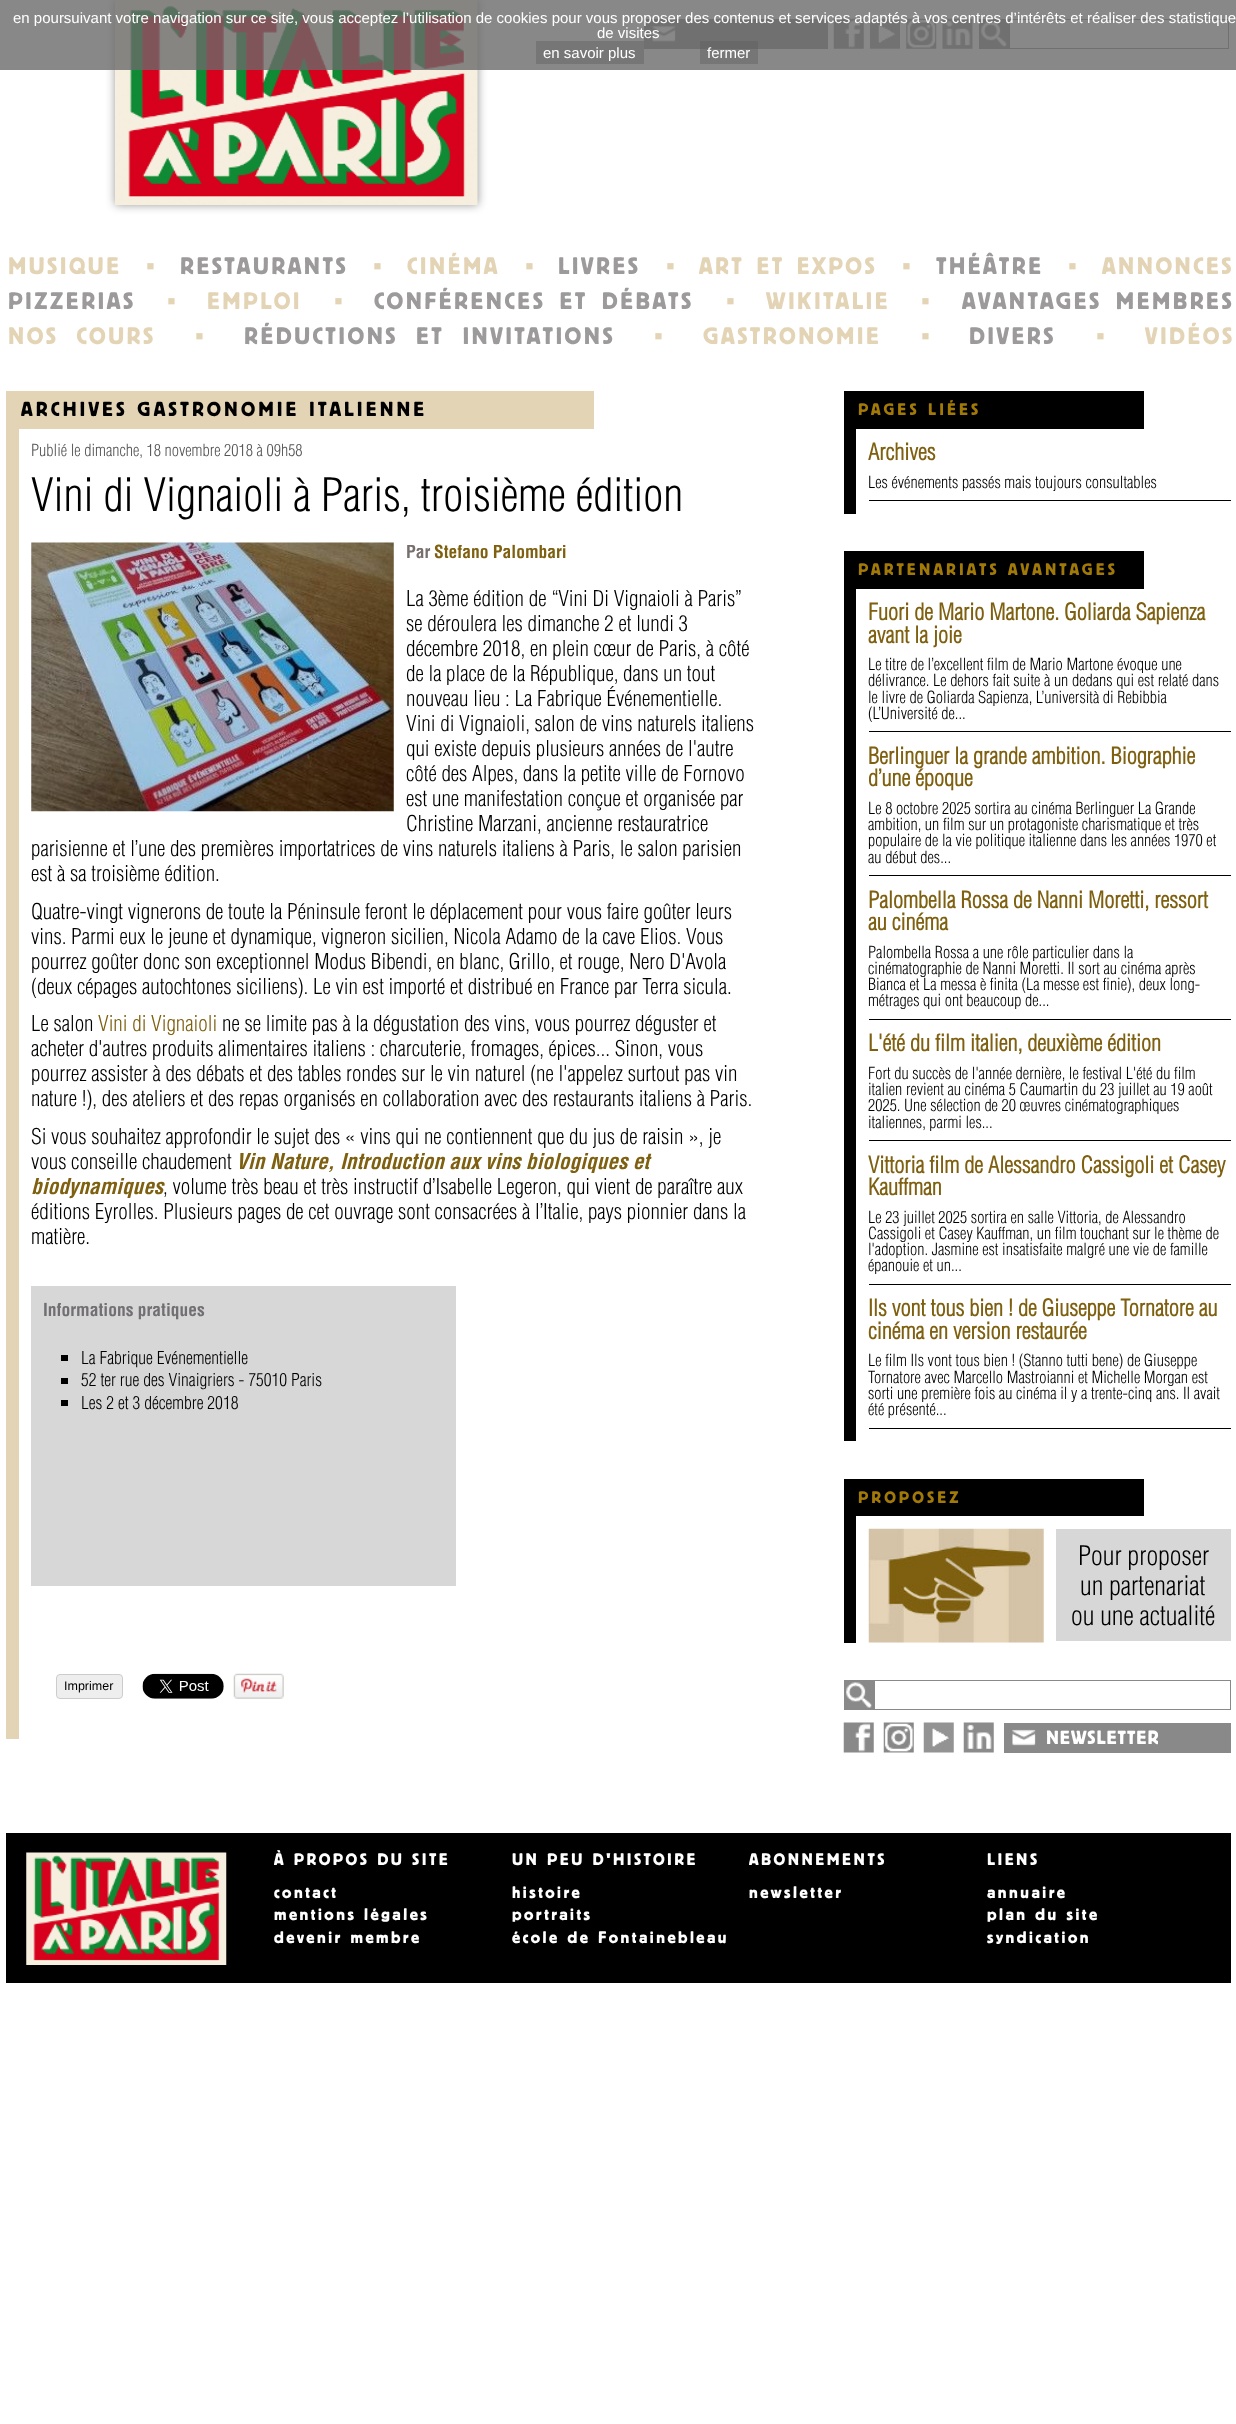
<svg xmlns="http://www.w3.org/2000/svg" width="1236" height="2424">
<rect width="100%" height="100%" fill="#fff"/>
<rect x="115" width="363" height="205" fill="#999" filter="blur(5px)"/>
<image x="115" y="0" width="363" height="205" href="media/1.png"/>
<rect x="644" y="19" width="184" height="30" fill="#898989"/>
<image x="652" y="26" width="24" height="16" href="media/2.png"/>
<image x="833" y="18" width="31" height="31" href="media/3.png"/>
<image x="870" y="18" width="30" height="31" href="media/4.png"/>
<image x="906" y="18" width="31" height="31" href="media/5.png"/>
<image x="942" y="18" width="31" height="31" href="media/6.png"/>
<rect x="979" y="19" width="250" height="30" fill="#898989"/>
<image x="981" y="21" width="26" height="26" href="media/7.png"/>
<rect x="1010" y="20" width="218" height="28" fill="#fff"/>
<rect width="1236" height="70" fill="#6a6a6acc"/>
<text x="13" y="23" style="font-family:Liberation Sans;font-size:15px;fill:#fff">en poursuivant votre navigation sur ce site, vous acceptez l’utilisation de cookies pour vous proposer des contenus et services adaptés à vos centres d’intérêts et réaliser des statistique</text>
<text x="597" y="38" style="font-family:Liberation Sans;font-size:15px;fill:#fff">de visites</text>
<rect x="536" y="41" width="108" height="23" fill="#767676"/>
<text x="543" y="58" style="font-family:Liberation Sans;font-size:15px;fill:#fff">en savoir plus</text>
<rect x="700" y="41" width="58" height="23" fill="#5c5c5c66"/>
<text x="707" y="58" style="font-family:Liberation Sans;font-size:15px;fill:#fff">fermer</text>
<text x="8" y="274" style="font-family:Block;font-size:25px;letter-spacing:2.5px;fill:#e4d4b6">MUSIQUE</text>
<text x="146" y="274" style="font-family:Liberation Serif;font-size:25px;fill:#e4d4b6">▪</text>
<text x="180" y="274" style="font-family:Block;font-size:25px;letter-spacing:2.5px;fill:#9c9a9a">RESTAURANTS</text>
<text x="373" y="274" style="font-family:Liberation Serif;font-size:25px;fill:#e4d4b6">▪</text>
<text x="407" y="274" style="font-family:Block;font-size:25px;letter-spacing:2.5px;fill:#e4d4b6">CINÉMA</text>
<text x="525" y="274" style="font-family:Liberation Serif;font-size:25px;fill:#e4d4b6">▪</text>
<text x="558" y="274" style="font-family:Block;font-size:25px;letter-spacing:2.5px;fill:#9c9a9a">LIVRES</text>
<text x="666" y="274" style="font-family:Liberation Serif;font-size:25px;fill:#e4d4b6">▪</text>
<text x="699" y="274" word-spacing="2" style="font-family:Block;font-size:25px;letter-spacing:2.5px;fill:#e4d4b6">ART ET EXPOS</text>
<text x="902" y="274" style="font-family:Liberation Serif;font-size:25px;fill:#e4d4b6">▪</text>
<text x="936" y="274" style="font-family:Block;font-size:25px;letter-spacing:2.5px;fill:#9c9a9a">THÉÂTRE</text>
<text x="1068" y="274" style="font-family:Liberation Serif;font-size:25px;fill:#e4d4b6">▪</text>
<text x="1102" y="274" style="font-family:Block;font-size:25px;letter-spacing:2.5px;fill:#e4d4b6">ANNONCES</text>
<text x="8" y="309" style="font-family:Block;font-size:25px;letter-spacing:2.5px;fill:#9c9a9a">PIZZERIAS</text>
<text x="167" y="309" style="font-family:Liberation Serif;font-size:25px;fill:#e4d4b6">▪</text>
<text x="207" y="309" style="font-family:Block;font-size:25px;letter-spacing:2.5px;fill:#e4d4b6">EMPLOI</text>
<text x="334" y="309" style="font-family:Liberation Serif;font-size:25px;fill:#e4d4b6">▪</text>
<text x="374" y="309" word-spacing="4" style="font-family:Block;font-size:25px;letter-spacing:2.5px;fill:#9c9a9a">CONFÉRENCES ET DÉBATS</text>
<text x="726" y="309" style="font-family:Liberation Serif;font-size:25px;fill:#e4d4b6">▪</text>
<text x="766" y="309" style="font-family:Block;font-size:25px;letter-spacing:2.5px;fill:#e4d4b6">WIKITALIE</text>
<text x="921" y="309" style="font-family:Liberation Serif;font-size:25px;fill:#e4d4b6">▪</text>
<text x="962" y="309" word-spacing="4" style="font-family:Block;font-size:25px;letter-spacing:2.5px;fill:#9c9a9a">AVANTAGES MEMBRES</text>
<text x="8" y="344" word-spacing="8" style="font-family:Block;font-size:25px;letter-spacing:2.5px;fill:#e4d4b6">NOS COURS</text>
<text x="195" y="344" style="font-family:Liberation Serif;font-size:25px;fill:#e4d4b6">▪</text>
<text x="244" y="344" word-spacing="8" style="font-family:Block;font-size:25px;letter-spacing:2.5px;fill:#9c9a9a">RÉDUCTIONS ET INVITATIONS</text>
<text x="654" y="344" style="font-family:Liberation Serif;font-size:25px;fill:#e4d4b6">▪</text>
<text x="703" y="344" style="font-family:Block;font-size:25px;letter-spacing:2.5px;fill:#e4d4b6">GASTRONOMIE</text>
<text x="921" y="344" style="font-family:Liberation Serif;font-size:25px;fill:#e4d4b6">▪</text>
<text x="969" y="344" style="font-family:Block;font-size:25px;letter-spacing:2.5px;fill:#9c9a9a">DIVERS</text>
<text x="1096" y="344" style="font-family:Liberation Serif;font-size:25px;fill:#e4d4b6">▪</text>
<text x="1145" y="344" style="font-family:Block;font-size:25px;letter-spacing:2.5px;fill:#e4d4b6">VIDÉOS</text>
<rect x="6" y="391" width="588" height="38" fill="#e4d4b6"/>
<text x="21" y="416" style="font-family:Block;font-size:21.25px;letter-spacing:3.1px;fill:#000">ARCHIVES GASTRONOMIE ITALIENNE</text>
<rect x="6" y="429" width="13" height="1310" fill="#e4d4b6"/>
<text x="31" y="456" style="font-family:Helvetica;font-size:16.25px;font-weight:300;fill:#555">Publié le dimanche, 18 novembre 2018 à 09h58</text>
<text x="31" y="511" style="font-family:Helvetica;font-size:45px;font-weight:300;fill:#000">Vini di Vignaioli à Paris, troisième édition</text>
<image x="31" y="542" width="363" height="270" href="media/8.png"/>
<text x="406" y="558" style="font-family:Helvetica;font-size:17.5px;font-weight:bold;fill:#776f6e">Par</text>
<text x="434" y="558" style="font-family:Helvetica;font-size:17.5px;font-weight:bold;fill:#7e6010">Stefano Palombari</text>
<text x="406" y="606" style="font-family:Helvetica;font-size:21.25px;font-weight:300;fill:#000">La 3ème édition de “Vini Di Vignaioli à Paris”</text>
<text x="406" y="631" style="font-family:Helvetica;font-size:21.25px;font-weight:300;fill:#000">se déroulera les dimanche 2 et lundi 3</text>
<text x="406" y="656" style="font-family:Helvetica;font-size:21.25px;font-weight:300;fill:#000">décembre 2018, en plein cœur de Paris, à côté</text>
<text x="406" y="681" style="font-family:Helvetica;font-size:21.25px;font-weight:300;fill:#000">de la place de la République, dans un tout</text>
<text x="406" y="706" style="font-family:Helvetica;font-size:21.25px;font-weight:300;fill:#000">nouveau lieu : La Fabrique Événementielle.</text>
<text x="406" y="731" style="font-family:Helvetica;font-size:21.25px;font-weight:300;fill:#000">Vini di Vignaioli, salon de vins naturels italiens</text>
<text x="406" y="756" style="font-family:Helvetica;font-size:21.25px;font-weight:300;fill:#000">qui existe depuis plusieurs années de l'autre</text>
<text x="406" y="781" style="font-family:Helvetica;font-size:21.25px;font-weight:300;fill:#000">côté des Alpes, dans la petite ville de Fornovo</text>
<text x="406" y="806" style="font-family:Helvetica;font-size:21.25px;font-weight:300;fill:#000">est une manifestation conçue et organisée par</text>
<text x="406" y="831" style="font-family:Helvetica;font-size:21.25px;font-weight:300;fill:#000">Christine Marzani, ancienne restauratrice</text>
<text x="31" y="856" style="font-family:Helvetica;font-size:21.25px;font-weight:300;fill:#000">parisienne et l’une des premières importatrices de vins naturels italiens à Paris, le salon parisien</text>
<text x="31" y="881" style="font-family:Helvetica;font-size:21.25px;font-weight:300;fill:#000">est à sa troisième édition.</text>
<text x="31" y="919" style="font-family:Helvetica;font-size:21.25px;font-weight:300;fill:#000">Quatre-vingt vignerons de toute la Péninsule feront le déplacement pour vous faire goûter leurs</text>
<text x="31" y="944" style="font-family:Helvetica;font-size:21.25px;font-weight:300;fill:#000">vins. Parmi eux le jeune et dynamique, vigneron sicilien, Nicola Adamo de la cave Elios. Vous</text>
<text x="31" y="969" style="font-family:Helvetica;font-size:21.25px;font-weight:300;fill:#000">pourrez goûter donc son exceptionnel Modus Bibendi, en blanc, Grillo, et rouge, Nero D'Avola</text>
<text x="31" y="994" style="font-family:Helvetica;font-size:21.25px;font-weight:300;fill:#000">(deux cépages autochtones siciliens). Le vin est importé et distribué en France par Terra sicula.</text>
<text x="31" y="1031" style="font-family:Helvetica;font-size:21.25px;font-weight:300;fill:#000">Le salon</text>
<text x="98" y="1031" style="font-family:Helvetica;font-size:21.25px;font-weight:300;fill:#7e6010">Vini di Vignaioli</text>
<text x="222" y="1031" style="font-family:Helvetica;font-size:21.25px;font-weight:300;fill:#000">ne se limite pas à la dégustation des vins, vous pourrez déguster et</text>
<text x="31" y="1056" style="font-family:Helvetica;font-size:21.25px;font-weight:300;fill:#000">acheter d'autres produits alimentaires italiens : charcuterie, fromages, épices... Sinon, vous</text>
<text x="31" y="1081" style="font-family:Helvetica;font-size:21.25px;font-weight:300;fill:#000">pourrez assister à des débats et des tables rondes sur le vin naturel (ne l'appelez surtout pas vin</text>
<text x="31" y="1106" style="font-family:Helvetica;font-size:21.25px;font-weight:300;fill:#000">nature !), des ateliers et des repas organisés en collaboration avec des restaurants italiens à Paris.</text>
<text x="31" y="1144" style="font-family:Helvetica;font-size:21.25px;font-weight:300;fill:#000">Si vous souhaitez approfondir le sujet des « vins qui ne contiennent que du jus de raisin », je</text>
<text x="31" y="1169" style="font-family:Helvetica;font-size:21.25px;font-weight:300;fill:#000">vous conseille chaudement</text>
<text x="236" y="1169" style="font-family:Helvetica;font-size:21.25px;font-weight:bold;font-style:italic;fill:#7e6010">Vin Nature, Introduction aux vins biologiques et</text>
<text x="31" y="1194" style="font-family:Helvetica;font-size:21.25px;font-weight:bold;font-style:italic;fill:#7e6010">biodynamiques</text>
<text x="163" y="1194" style="font-family:Helvetica;font-size:21.25px;font-weight:300;fill:#000">, volume très beau et très instructif d’Isabelle Legeron, qui vient de paraître aux</text>
<text x="31" y="1219" style="font-family:Helvetica;font-size:21.25px;font-weight:300;fill:#000">éditions Eyrolles. Plusieurs pages de cet ouvrage sont consacrées à l’Italie, pays pionnier dans la</text>
<text x="31" y="1244" style="font-family:Helvetica;font-size:21.25px;font-weight:300;fill:#000">matière.</text>
<rect x="31" y="1286" width="425" height="300" fill="#d7d7d7"/>
<text x="43" y="1316" style="font-family:Helvetica;font-size:17.5px;font-weight:bold;fill:#716f72">Informations pratiques</text>
<rect x="61" y="1355" width="7" height="6" fill="#000"/>
<text x="81" y="1364" style="font-family:Helvetica;font-size:17.5px;font-weight:300;fill:#000">La Fabrique Evénementielle</text>
<rect x="61" y="1378" width="7" height="6" fill="#000"/>
<text x="81" y="1386" style="font-family:Helvetica;font-size:17.5px;font-weight:300;fill:#000">52 ter rue des Vinaigriers - 75010 Paris</text>
<rect x="61" y="1400" width="7" height="6" fill="#000"/>
<text x="81" y="1409" style="font-family:Helvetica;font-size:17.5px;font-weight:300;fill:#000">Les 2 et 3 décembre 2018</text>
<rect x="56.5" y="1674.5" width="66" height="24" rx="3.5" fill="#eee" stroke="#ccc"/>
<text x="64" y="1690" style="font-family:Liberation Sans;font-size:12.5px;fill:#000">Imprimer</text>
<image x="142" y="1673" width="82" height="26" href="media/9.png"/>
<image x="233" y="1673" width="51" height="26" href="media/10.png"/>
<rect x="844" y="391" width="300" height="38" fill="#000"/>
<text x="858" y="415" style="font-family:Block;font-size:17.5px;letter-spacing:3.1px;fill:#a17908">PAGES LIÉES</text>
<rect x="844" y="429" width="12" height="85" fill="#000"/>
<rect x="869" y="500" width="362" height="1" fill="#000"/>
<text x="868" y="460" style="font-family:'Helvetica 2';font-size:22.5px;font-weight:bold;fill:#7e6010">Archives</text>
<text x="868" y="488" style="font-family:Helvetica;font-size:16.25px;font-weight:300;fill:#000">Les événements passés mais toujours consultables</text>
<rect x="844" y="551" width="300" height="38" fill="#000"/>
<text x="858" y="575" style="font-family:Block;font-size:17.5px;letter-spacing:3.1px;fill:#a17908">PARTENARIATS AVANTAGES</text>
<rect x="844" y="589" width="12" height="852" fill="#000"/>
<rect x="869" y="731" width="362" height="1" fill="#000"/>
<text x="868" y="620" style="font-family:'Helvetica 2';font-size:22.5px;font-weight:bold;fill:#7e6010">Fuori de Mario Martone. Goliarda Sapienza</text>
<text x="868" y="643" style="font-family:'Helvetica 2';font-size:22.5px;font-weight:bold;fill:#7e6010">avant la joie</text>
<text x="868" y="670" style="font-family:Helvetica;font-size:16.25px;font-weight:300;fill:#000">Le titre de l’excellent film de Mario Martone évoque une</text>
<text x="868" y="686" style="font-family:Helvetica;font-size:16.25px;font-weight:300;fill:#000">délivrance. Le dehors fait suite à un dedans qui est relaté dans</text>
<text x="868" y="703" style="font-family:Helvetica;font-size:16.25px;font-weight:300;fill:#000">le livre de Goliarda Sapienza, L’università di Rebibbia</text>
<text x="868" y="719" style="font-family:Helvetica;font-size:16.25px;font-weight:300;fill:#000">(L’Université de...</text>
<rect x="869" y="875" width="362" height="1" fill="#000"/>
<text x="868" y="764" style="font-family:'Helvetica 2';font-size:22.5px;font-weight:bold;fill:#7e6010">Berlinguer la grande ambition. Biographie</text>
<text x="868" y="786" style="font-family:'Helvetica 2';font-size:22.5px;font-weight:bold;fill:#7e6010">d’une époque</text>
<text x="868" y="814" style="font-family:Helvetica;font-size:16.25px;font-weight:300;fill:#000">Le 8 octobre 2025 sortira au cinéma Berlinguer La Grande</text>
<text x="868" y="830" style="font-family:Helvetica;font-size:16.25px;font-weight:300;fill:#000">ambition, un film sur un protagoniste charismatique et très</text>
<text x="868" y="846" style="font-family:Helvetica;font-size:16.25px;font-weight:300;fill:#000">populaire de la vie politique italienne dans les années 1970 et</text>
<text x="868" y="863" style="font-family:Helvetica;font-size:16.25px;font-weight:300;fill:#000">au début des...</text>
<rect x="869" y="1019" width="362" height="1" fill="#000"/>
<text x="868" y="908" style="font-family:'Helvetica 2';font-size:22.5px;font-weight:bold;fill:#7e6010">Palombella Rossa de Nanni Moretti, ressort</text>
<text x="868" y="930" style="font-family:'Helvetica 2';font-size:22.5px;font-weight:bold;fill:#7e6010">au cinéma</text>
<text x="868" y="958" style="font-family:Helvetica;font-size:16.25px;font-weight:300;fill:#000">Palombella Rossa a une rôle particulier dans la</text>
<text x="868" y="974" style="font-family:Helvetica;font-size:16.25px;font-weight:300;fill:#000">cinématographie de Nanni Moretti. Il sort au cinéma après</text>
<text x="868" y="990" style="font-family:Helvetica;font-size:16.25px;font-weight:300;fill:#000">Bianca et La messa è finita (La messe est finie), deux long-</text>
<text x="868" y="1006" style="font-family:Helvetica;font-size:16.25px;font-weight:300;fill:#000">métrages qui ont beaucoup de...</text>
<rect x="869" y="1140" width="362" height="1" fill="#000"/>
<text x="868" y="1051" style="font-family:'Helvetica 2';font-size:22.5px;font-weight:bold;fill:#7e6010">L'été du film italien, deuxième édition</text>
<text x="868" y="1079" style="font-family:Helvetica;font-size:16.25px;font-weight:300;fill:#000">Fort du succès de l'année dernière, le festival L'été du film</text>
<text x="868" y="1095" style="font-family:Helvetica;font-size:16.25px;font-weight:300;fill:#000">italien revient au cinéma 5 Caumartin du 23 juillet au 19 août</text>
<text x="868" y="1111" style="font-family:Helvetica;font-size:16.25px;font-weight:300;fill:#000">2025. Une sélection de 20 œuvres cinématographiques</text>
<text x="868" y="1128" style="font-family:Helvetica;font-size:16.25px;font-weight:300;fill:#000">italiennes, parmi les...</text>
<rect x="869" y="1284" width="362" height="1" fill="#000"/>
<text x="868" y="1173" style="font-family:'Helvetica 2';font-size:22.5px;font-weight:bold;fill:#7e6010">Vittoria film de Alessandro Cassigoli et Casey</text>
<text x="868" y="1195" style="font-family:'Helvetica 2';font-size:22.5px;font-weight:bold;fill:#7e6010">Kauffman</text>
<text x="868" y="1223" style="font-family:Helvetica;font-size:16.25px;font-weight:300;fill:#000">Le 23 juillet 2025 sortira en salle Vittoria, de Alessandro</text>
<text x="868" y="1239" style="font-family:Helvetica;font-size:16.25px;font-weight:300;fill:#000">Cassigoli et Casey Kauffman, un film touchant sur le thème de</text>
<text x="868" y="1255" style="font-family:Helvetica;font-size:16.25px;font-weight:300;fill:#000">l'adoption. Jasmine est insatisfaite malgré une vie de famille</text>
<text x="868" y="1271" style="font-family:Helvetica;font-size:16.25px;font-weight:300;fill:#000">épanouie et un...</text>
<rect x="869" y="1428" width="362" height="1" fill="#000"/>
<text x="868" y="1316" style="font-family:'Helvetica 2';font-size:22.5px;font-weight:bold;fill:#7e6010">Ils vont tous bien ! de Giuseppe Tornatore au</text>
<text x="868" y="1339" style="font-family:'Helvetica 2';font-size:22.5px;font-weight:bold;fill:#7e6010">cinéma en version restaurée</text>
<text x="868" y="1366" style="font-family:Helvetica;font-size:16.25px;font-weight:300;fill:#000">Le film Ils vont tous bien ! (Stanno tutti bene) de Giuseppe</text>
<text x="868" y="1383" style="font-family:Helvetica;font-size:16.25px;font-weight:300;fill:#000">Tornatore avec Marcello Mastroianni et Michelle Morgan est</text>
<text x="868" y="1399" style="font-family:Helvetica;font-size:16.25px;font-weight:300;fill:#000">sorti une première fois au cinéma il y a trente-cinq ans. Il avait</text>
<text x="868" y="1415" style="font-family:Helvetica;font-size:16.25px;font-weight:300;fill:#000">été présenté...</text>
<rect x="844" y="1479" width="300" height="37" fill="#000"/>
<text x="858" y="1503" style="font-family:Block;font-size:17.5px;letter-spacing:3.1px;fill:#a17908">PROPOSEZ</text>
<rect x="844" y="1516" width="12" height="127" fill="#000"/>
<image x="868" y="1528" width="176" height="115" href="media/11.png"/>
<rect x="1056" y="1529" width="175" height="112" fill="#d7d7d7"/>
<text x="1078" y="1565" style="font-family:Helvetica;font-size:26.25px;font-weight:300;fill:#000">Pour proposer</text>
<text x="1080" y="1595" style="font-family:Helvetica;font-size:26.25px;font-weight:300;fill:#000">un partenariat</text>
<text x="1071" y="1625" style="font-family:Helvetica;font-size:26.25px;font-weight:300;fill:#000">ou une actualité</text>
<rect x="844" y="1680" width="387" height="30" fill="#898989"/>
<image x="846" y="1682" width="26" height="26" href="media/12.png"/>
<rect x="875" y="1681" width="355" height="28" fill="#fff"/>
<image x="843" y="1722" width="31" height="31" href="media/13.png"/>
<image x="883" y="1722" width="31" height="31" href="media/14.png"/>
<image x="923" y="1722" width="31" height="31" href="media/15.png"/>
<image x="963" y="1722" width="31" height="31" href="media/16.png"/>
<rect x="1004" y="1723" width="227" height="30" fill="#898989"/>
<image x="1012" y="1729" width="24" height="17" href="media/17.png"/>
<text x="1046" y="1744" style="font-family:Block;font-size:20px;letter-spacing:0.9px;fill:#fff">NEWSLETTER</text>
<rect x="6" y="1833" width="1225" height="150" fill="#000"/>
<image x="26" y="1852" width="201" height="113" href="media/18.png"/>
<text x="274" y="1865" style="font-family:Block;font-size:17.5px;letter-spacing:2.5px;fill:#fff">À PROPOS DU SITE</text>
<text x="274" y="1898" style="font-family:Block;font-size:17.5px;letter-spacing:2.5px;fill:#fff">contact</text>
<text x="274" y="1920" style="font-family:Block;font-size:17.5px;letter-spacing:2.5px;fill:#fff">mentions légales</text>
<text x="274" y="1943" style="font-family:Block;font-size:17.5px;letter-spacing:2.5px;fill:#fff">devenir membre</text>
<text x="512" y="1865" style="font-family:Block;font-size:17.5px;letter-spacing:2.5px;fill:#fff">UN PEU D'HISTOIRE</text>
<text x="512" y="1898" style="font-family:Block;font-size:17.5px;letter-spacing:2.5px;fill:#fff">histoire</text>
<text x="512" y="1920" style="font-family:Block;font-size:17.5px;letter-spacing:2.5px;fill:#fff">portraits</text>
<text x="512" y="1943" style="font-family:Block;font-size:17.5px;letter-spacing:2.5px;fill:#fff">école de Fontainebleau</text>
<text x="749" y="1865" style="font-family:Block;font-size:17.5px;letter-spacing:2.5px;fill:#fff">ABONNEMENTS</text>
<text x="749" y="1898" style="font-family:Block;font-size:17.5px;letter-spacing:2.5px;fill:#fff">newsletter</text>
<text x="987" y="1865" style="font-family:Block;font-size:17.5px;letter-spacing:2.5px;fill:#fff">LIENS</text>
<text x="987" y="1898" style="font-family:Block;font-size:17.5px;letter-spacing:2.5px;fill:#fff">annuaire</text>
<text x="987" y="1920" style="font-family:Block;font-size:17.5px;letter-spacing:2.5px;fill:#fff">plan du site</text>
<text x="987" y="1943" style="font-family:Block;font-size:17.5px;letter-spacing:2.5px;fill:#fff">syndication</text>
</svg>
